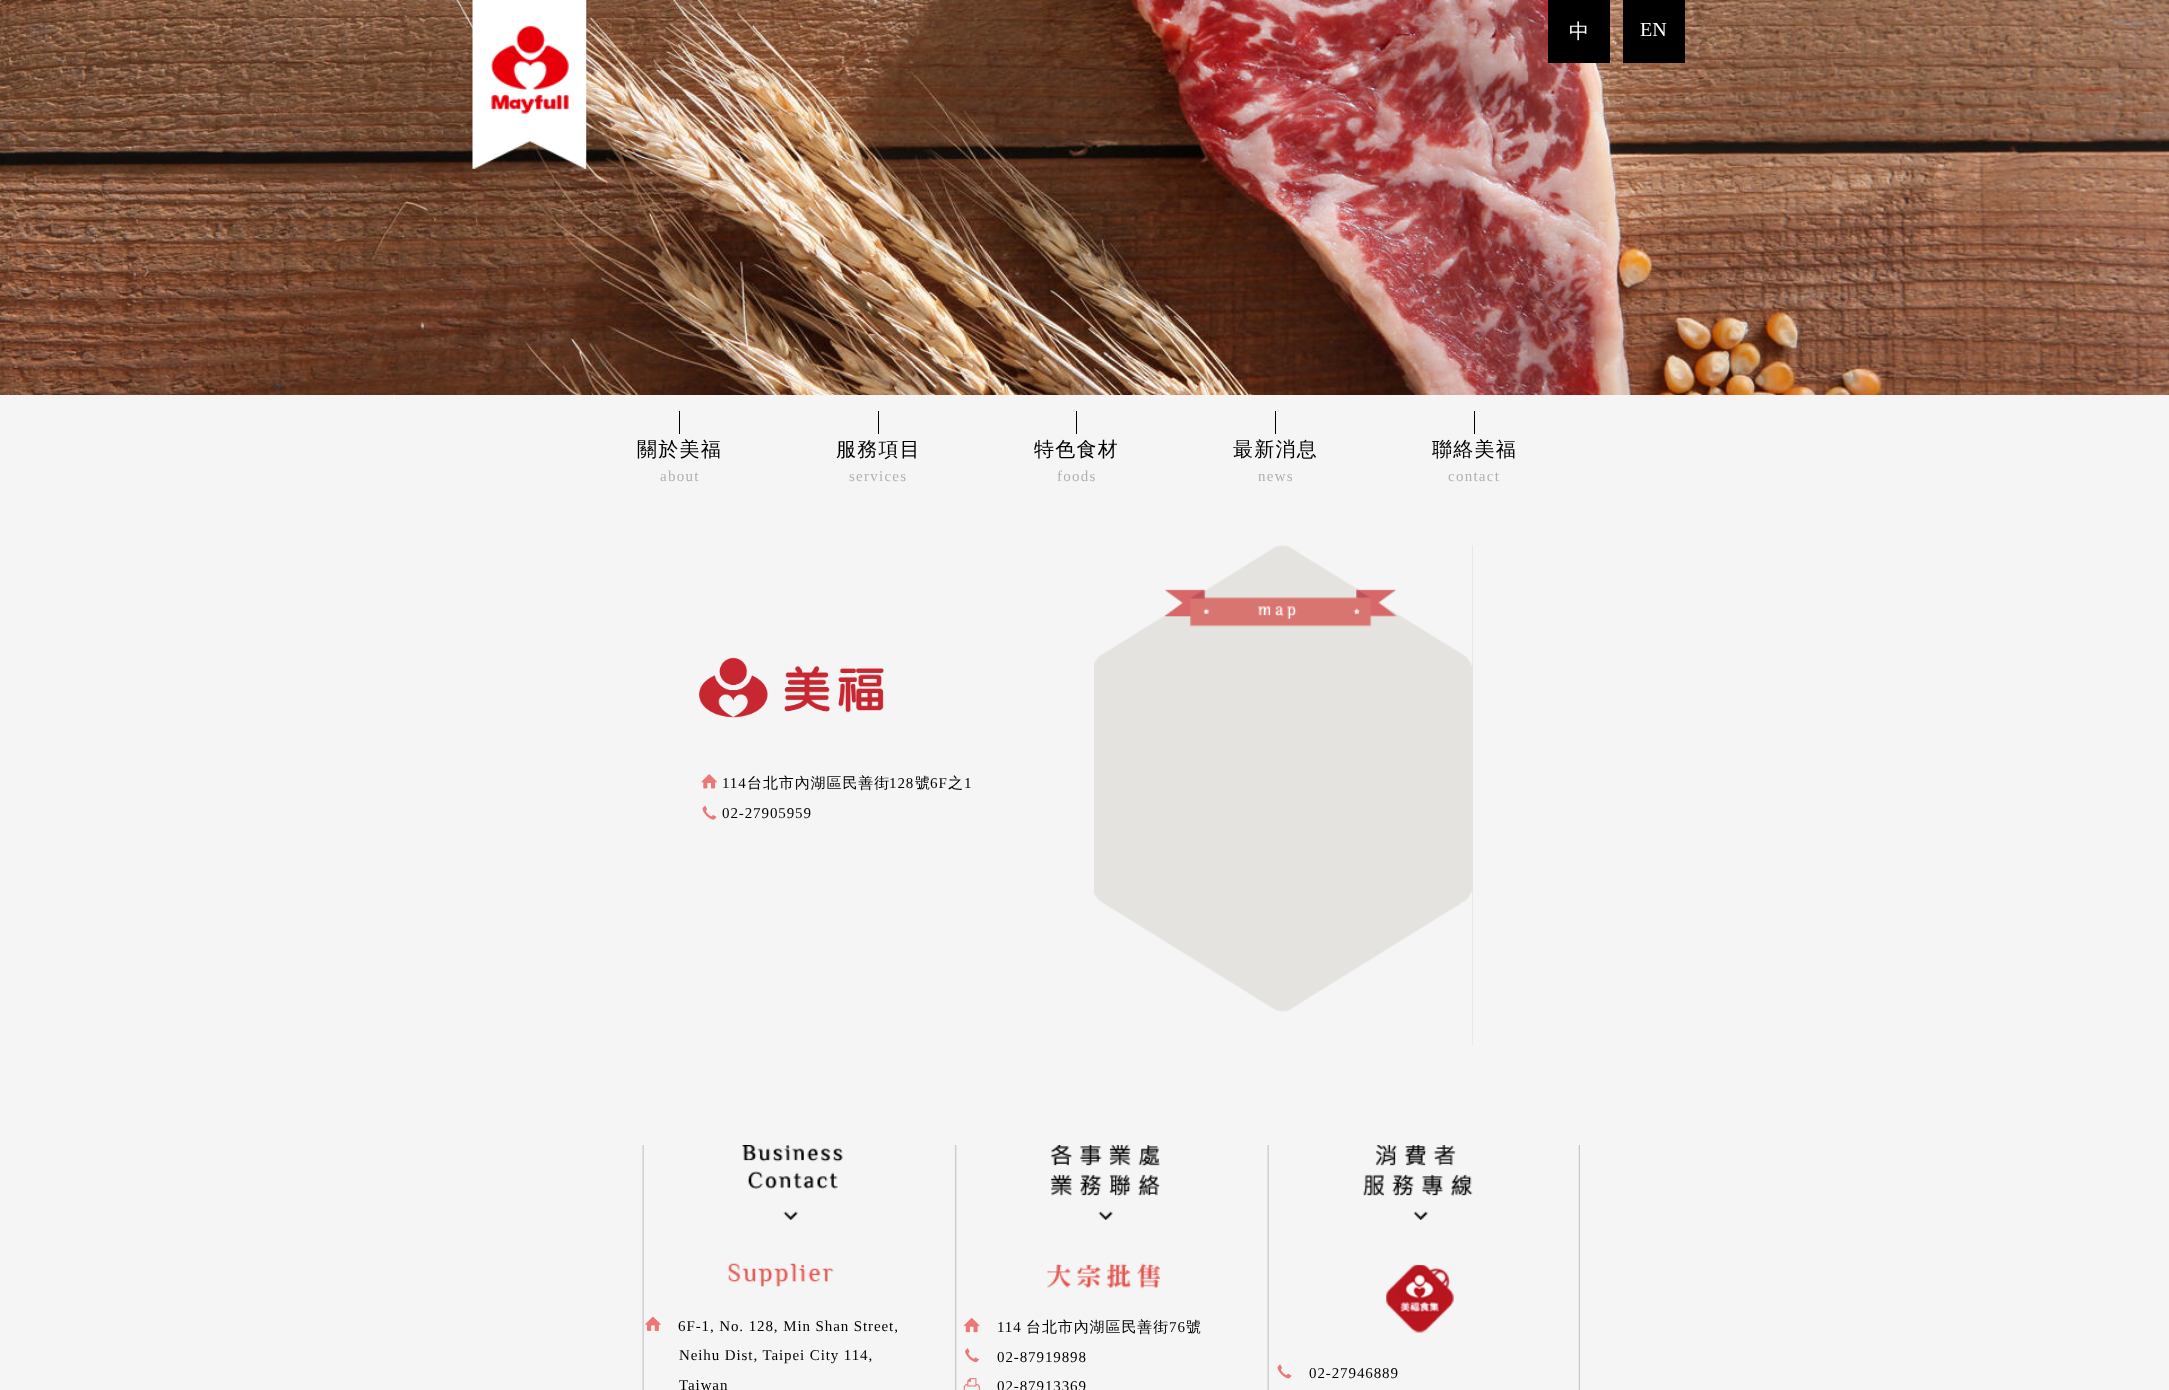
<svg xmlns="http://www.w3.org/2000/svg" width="2169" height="1390">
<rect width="100%" height="100%" fill="#f5f5f5"/>
<image x="0" y="0" width="2169" height="395" href="media/1.png"/>
<image x="472" y="0" width="115" height="169" href="media/2.png"/>
<rect x="1548" width="62" height="63" fill="#000"/>
<text x="1569" y="38" style="font-family:WenQuanYi Zen Hei;font-size:20px;font-weight:500;fill:#fff">中</text>
<rect x="1623" width="62" height="63" fill="#000"/>
<text x="1640" y="36" style="font-family:Liberation Serif;font-size:20px;fill:#fff">EN</text>
<rect x="679" y="411" width="1" height="23" fill="#000"/>
<text x="637" y="456" style="font-family:WenQuanYi Zen Hei;font-size:20px;font-weight:500;letter-spacing:1.25px;fill:#000">關於美福</text>
<text x="660" y="481" style="font-family:Liberation Serif;font-size:15px;letter-spacing:1.25px;fill:#b0b0b0">about</text>
<rect x="878" y="411" width="1" height="23" fill="#000"/>
<text x="836" y="456" style="font-family:WenQuanYi Zen Hei;font-size:20px;font-weight:500;letter-spacing:1.25px;fill:#000">服務項目</text>
<text x="849" y="481" style="font-family:Liberation Serif;font-size:15px;letter-spacing:1.25px;fill:#b0b0b0">services</text>
<rect x="1076" y="411" width="1" height="23" fill="#000"/>
<text x="1034" y="456" style="font-family:WenQuanYi Zen Hei;font-size:20px;font-weight:500;letter-spacing:1.25px;fill:#000">特色食材</text>
<text x="1057" y="481" style="font-family:Liberation Serif;font-size:15px;letter-spacing:1.25px;fill:#b0b0b0">foods</text>
<rect x="1275" y="411" width="1" height="23" fill="#000"/>
<text x="1233" y="456" style="font-family:WenQuanYi Zen Hei;font-size:20px;font-weight:500;letter-spacing:1.25px;fill:#000">最新消息</text>
<text x="1258" y="481" style="font-family:Liberation Serif;font-size:15px;letter-spacing:1.25px;fill:#b0b0b0">news</text>
<rect x="1474" y="411" width="1" height="23" fill="#000"/>
<text x="1432" y="456" style="font-family:WenQuanYi Zen Hei;font-size:20px;font-weight:500;letter-spacing:1.25px;fill:#000">聯絡美福</text>
<text x="1448" y="481" style="font-family:Liberation Serif;font-size:15px;letter-spacing:1.25px;fill:#b0b0b0">contact</text>
<image x="699" y="657" width="185" height="61" href="media/3.png"/>
<image x="701" y="774" width="16" height="15" href="media/4.png"/>
<text x="722" y="788" style="font-family:Liberation Serif;font-size:15px;letter-spacing:0.9px;fill:#000">114</text>
<text x="747" y="788" style="font-family:WenQuanYi Zen Hei;font-size:15px;font-weight:500;letter-spacing:0.9px;fill:#000">台北市內湖區民善街</text>
<text x="889" y="788" style="font-family:Liberation Serif;font-size:15px;letter-spacing:0.9px;fill:#000">128</text>
<text x="915" y="788" style="font-family:WenQuanYi Zen Hei;font-size:15px;font-weight:500;letter-spacing:0.9px;fill:#000">號</text>
<text x="930" y="788" style="font-family:Liberation Serif;font-size:15px;letter-spacing:0.9px;fill:#000">6F</text>
<text x="948" y="788" style="font-family:WenQuanYi Zen Hei;font-size:15px;font-weight:500;letter-spacing:0.9px;fill:#000">之</text>
<text x="964" y="788" style="font-family:Liberation Serif;font-size:15px;letter-spacing:0.9px;fill:#000">1</text>
<image x="702" y="805" width="15" height="15" href="media/5.png"/>
<text x="722" y="818" style="font-family:Liberation Serif;font-size:15px;letter-spacing:0.9px;fill:#000">02-27905959</text>
<rect x="1094" y="545" width="379" height="500" fill="#e5e3df"/>
<image x="1094" y="545" width="379" height="121" href="media/6.png"/>
<image x="1094" y="891" width="379" height="154" href="media/7.png"/>
<image x="642" y="1145" width="938" height="245" href="media/8.png"/>
<image x="742" y="1145" width="731" height="75" href="media/9.png"/>
<image x="728" y="1263" width="106" height="24" href="media/10.png"/>
<image x="645" y="1316" width="16" height="15" href="media/11.png"/>
<text x="678" y="1331" style="font-family:Liberation Serif;font-size:15px;letter-spacing:0.9px;fill:#000">6F-1, No. 128, Min Shan Street,</text>
<text x="679" y="1360" style="font-family:Liberation Serif;font-size:15px;letter-spacing:0.9px;fill:#000">Neihu Dist, Taipei City 114,</text>
<text x="679" y="1390" style="font-family:Liberation Serif;font-size:15px;letter-spacing:0.9px;fill:#000">Taiwan</text>
<image x="1047" y="1263" width="113" height="25" href="media/12.png"/>
<image x="963" y="1318" width="17" height="15" href="media/13.png"/>
<text x="997" y="1332" style="font-family:Liberation Serif;font-size:15px;letter-spacing:0.9px;fill:#000">114</text>
<text x="1026" y="1332" style="font-family:WenQuanYi Zen Hei;font-size:15px;font-weight:500;letter-spacing:0.9px;fill:#000">台北市內湖區民善街</text>
<text x="1169" y="1332" style="font-family:Liberation Serif;font-size:15px;letter-spacing:0.9px;fill:#000">76</text>
<text x="1186" y="1332" style="font-family:WenQuanYi Zen Hei;font-size:15px;font-weight:500;letter-spacing:0.9px;fill:#000">號</text>
<image x="965" y="1348" width="14" height="15" href="media/14.png"/>
<text x="997" y="1362" style="font-family:Liberation Serif;font-size:15px;letter-spacing:0.9px;fill:#000">02-87919898</text>
<image x="963" y="1378" width="17" height="12" href="media/15.png"/>
<text x="997" y="1391" style="font-family:Liberation Serif;font-size:15px;letter-spacing:0.9px;fill:#000">02-87913369</text>
<image x="1386" y="1264" width="68" height="69" href="media/16.png"/>
<image x="1277" y="1364" width="15" height="15" href="media/17.png"/>
<text x="1309" y="1378" style="font-family:Liberation Serif;font-size:15px;letter-spacing:0.9px;fill:#000">02-27946889</text>
</svg>
